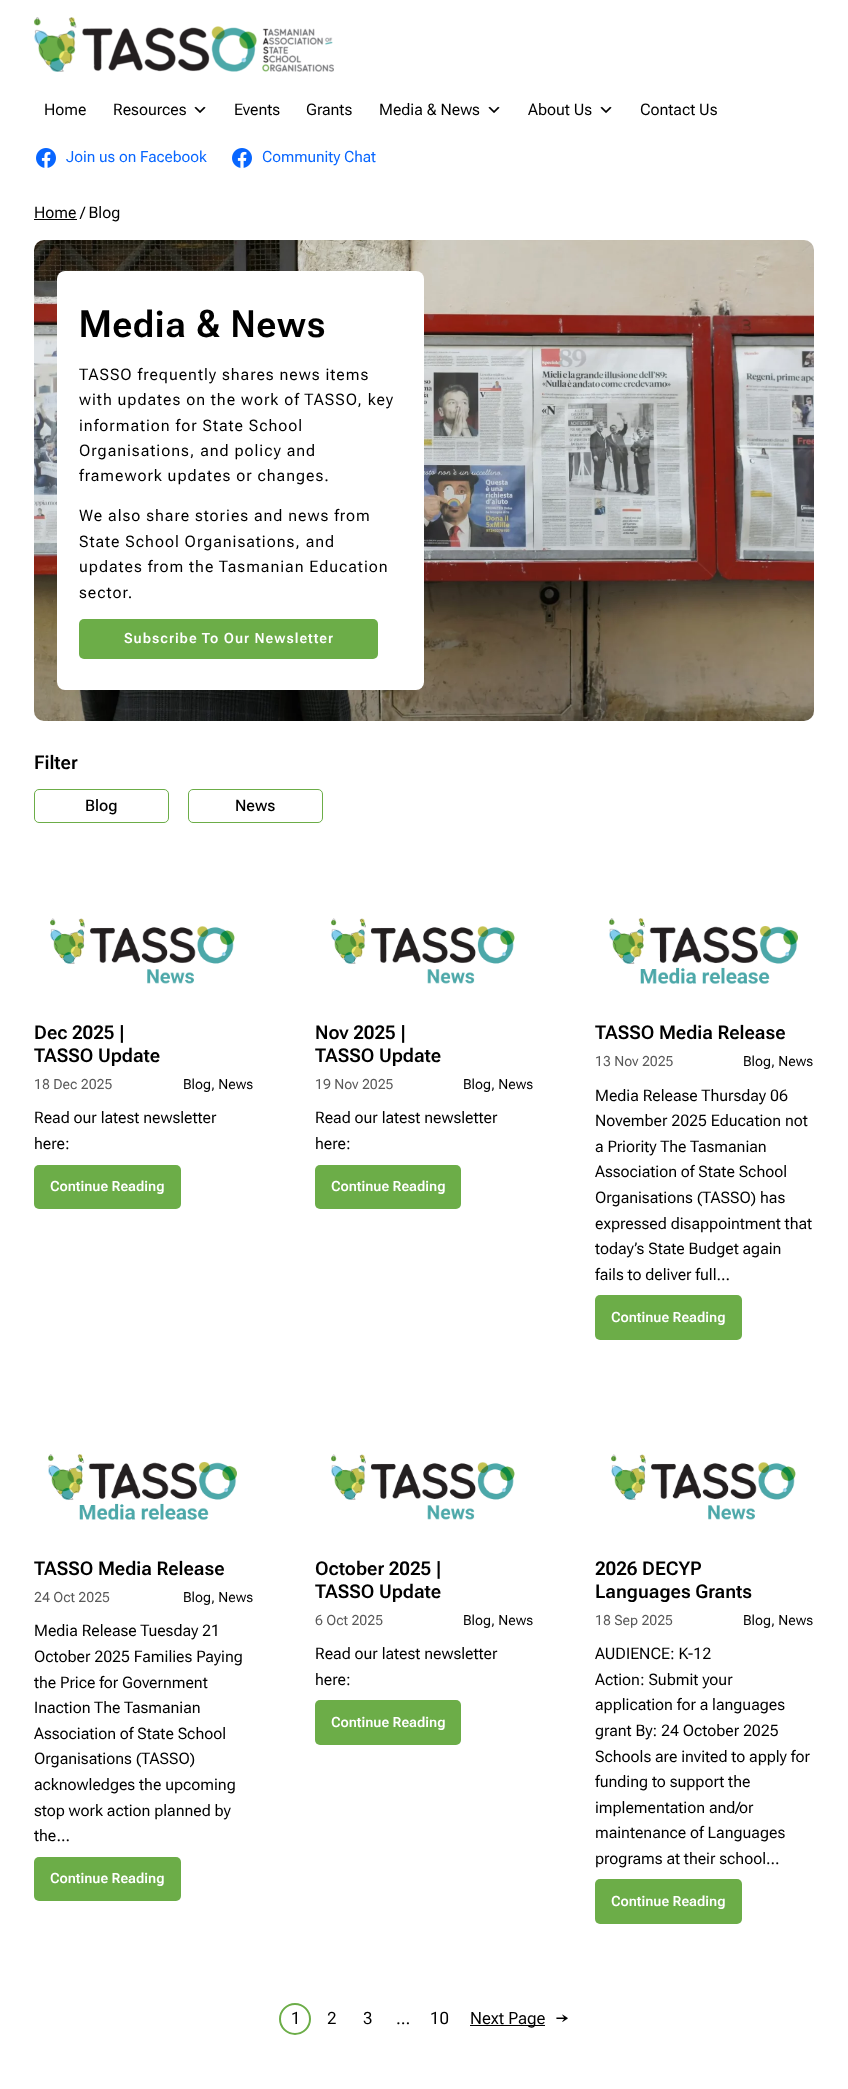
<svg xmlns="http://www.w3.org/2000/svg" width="848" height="2089">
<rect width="100%" height="100%" fill="#fff"/>
<image x="34" y="17" width="300" height="55" href="media/1.png"/>
<text x="44" y="115" style="font-family:'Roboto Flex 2';font-size:16px;fill:#000">Home</text>
<text x="113" y="115" style="font-family:'Roboto Flex 2';font-size:16px;fill:#000">Resources</text>
<image x="194" y="106" width="12" height="7" href="media/2.png"/>
<text x="234" y="115" style="font-family:'Roboto Flex 2';font-size:16px;fill:#000">Events</text>
<text x="306" y="115" style="font-family:'Roboto Flex 2';font-size:16px;fill:#000">Grants</text>
<text x="379" y="115" style="font-family:'Roboto Flex 2';font-size:16px;fill:#000">Media &amp; News</text>
<image x="488" y="106" width="12" height="7" href="media/2.png"/>
<text x="528" y="115" style="font-family:'Roboto Flex 2';font-size:16px;fill:#000">About Us</text>
<image x="600" y="106" width="12" height="7" href="media/2.png"/>
<text x="640" y="115" style="font-family:'Roboto Flex 2';font-size:16px;fill:#000">Contact Us</text>
<image x="36" y="148" width="20" height="20" href="media/3.png"/>
<text x="66" y="162" style="font-family:'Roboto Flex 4';font-size:15.5px;fill:#0866ff">Join us on Facebook</text>
<image x="232" y="148" width="20" height="20" href="media/3.png"/>
<text x="262" y="162" style="font-family:'Roboto Flex 4';font-size:15.5px;fill:#0866ff">Community Chat</text>
<rect x="34" y="219" width="43" height="1" fill="#000"/>
<text x="34" y="218" style="font-family:'Roboto Flex 2';font-size:16px;fill:#000">Home / Blog</text>
<image x="34" y="240" width="780" height="481" href="media/4.png"/>
<rect x="57" y="271" width="367" height="419" rx="8" fill="#fff"/>
<text x="79" y="337" style="font-family:'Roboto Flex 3';font-size:37.75px;font-weight:600;letter-spacing:1px;fill:#000">Media &amp; News</text>
<text x="79" y="380" style="font-family:'Roboto Flex 2';font-size:16px;letter-spacing:1px;fill:#000">TASSO frequently shares news items</text>
<text x="79" y="405" style="font-family:'Roboto Flex 2';font-size:16px;letter-spacing:1px;fill:#000">with updates on the work of TASSO, key</text>
<text x="79" y="431" style="font-family:'Roboto Flex 2';font-size:16px;letter-spacing:1px;fill:#000">information for State School</text>
<text x="79" y="456" style="font-family:'Roboto Flex 2';font-size:16px;letter-spacing:1px;fill:#000">Organisations, and policy and</text>
<text x="79" y="481" style="font-family:'Roboto Flex 2';font-size:16px;letter-spacing:1px;fill:#000">framework updates or changes.</text>
<text x="79" y="521" style="font-family:'Roboto Flex 2';font-size:16px;letter-spacing:1px;fill:#000">We also share stories and news from</text>
<text x="79" y="547" style="font-family:'Roboto Flex 2';font-size:16px;letter-spacing:1px;fill:#000">State School Organisations, and</text>
<text x="79" y="572" style="font-family:'Roboto Flex 2';font-size:16px;letter-spacing:1px;fill:#000">updates from the Tasmanian Education</text>
<text x="79" y="598" style="font-family:'Roboto Flex 2';font-size:16px;letter-spacing:1px;fill:#000">sector.</text>
<rect x="79" y="619" width="299" height="40" rx="5" fill="#6cad48"/>
<text x="124" y="643" style="font-family:'Roboto Flex 2';font-size:14px;font-weight:600;letter-spacing:1px;fill:#fff">Subscribe To Our Newsletter</text>
<text x="34" y="769" style="font-family:Roboto Flex;font-size:19px;font-weight:600;fill:#000">Filter</text>
<rect x="34.5" y="789.5" width="134" height="33" rx="4.5" fill="none" stroke="#6cad48"/>
<text x="85" y="811" style="font-family:Roboto Flex;font-size:16px;font-weight:500;fill:#000">Blog</text>
<rect x="188.5" y="789.5" width="134" height="33" rx="4.5" fill="none" stroke="#6cad48"/>
<text x="235" y="811" style="font-family:Roboto Flex;font-size:16px;font-weight:500;fill:#000">News</text>
<image x="50" y="918" width="185" height="66" href="media/5.png"/>
<text x="34" y="1039" style="font-family:Roboto Flex;font-size:19px;font-weight:600;fill:#000">Dec 2025 |</text>
<text x="34" y="1062" style="font-family:Roboto Flex;font-size:19px;font-weight:600;fill:#000">TASSO Update</text>
<text x="34" y="1089" style="font-family:Roboto Flex;font-size:14px;fill:#595959">18 Dec 2025</text>
<text x="183" y="1089" style="font-family:Roboto Flex;font-size:14px;fill:#000">Blog, News</text>
<text x="34" y="1123" style="font-family:'Roboto Flex 2';font-size:16px;fill:#000">Read our latest newsletter</text>
<text x="34" y="1149" style="font-family:'Roboto Flex 2';font-size:16px;fill:#000">here:</text>
<rect x="34" y="1165" width="147" height="44" rx="5" fill="#6cad48"/>
<text x="50" y="1191" style="font-family:'Roboto Flex 2';font-size:14px;font-weight:600;fill:#fff">Continue Reading</text>
<image x="331" y="918" width="184" height="66" href="media/6.png"/>
<text x="315" y="1039" style="font-family:Roboto Flex;font-size:19px;font-weight:600;fill:#000">Nov 2025 |</text>
<text x="315" y="1062" style="font-family:Roboto Flex;font-size:19px;font-weight:600;fill:#000">TASSO Update</text>
<text x="315" y="1089" style="font-family:Roboto Flex;font-size:14px;fill:#595959">19 Nov 2025</text>
<text x="463" y="1089" style="font-family:Roboto Flex;font-size:14px;fill:#000">Blog, News</text>
<text x="315" y="1123" style="font-family:'Roboto Flex 2';font-size:16px;fill:#000">Read our latest newsletter</text>
<text x="315" y="1149" style="font-family:'Roboto Flex 2';font-size:16px;fill:#000">here:</text>
<rect x="315" y="1165" width="146" height="44" rx="5" fill="#6cad48"/>
<text x="331" y="1191" style="font-family:'Roboto Flex 2';font-size:14px;font-weight:600;fill:#fff">Continue Reading</text>
<image x="609" y="918" width="189" height="66" href="media/7.png"/>
<text x="595" y="1039" style="font-family:Roboto Flex;font-size:19px;font-weight:600;fill:#000">TASSO Media Release</text>
<text x="595" y="1066" style="font-family:Roboto Flex;font-size:14px;fill:#595959">13 Nov 2025</text>
<text x="743" y="1066" style="font-family:Roboto Flex;font-size:14px;fill:#000">Blog, News</text>
<text x="595" y="1101" style="font-family:'Roboto Flex 2';font-size:16px;fill:#000">Media Release Thursday 06</text>
<text x="595" y="1126" style="font-family:'Roboto Flex 2';font-size:16px;fill:#000">November 2025 Education not</text>
<text x="595" y="1152" style="font-family:'Roboto Flex 2';font-size:16px;fill:#000">a Priority The Tasmanian</text>
<text x="595" y="1177" style="font-family:'Roboto Flex 2';font-size:16px;fill:#000">Association of State School</text>
<text x="595" y="1203" style="font-family:'Roboto Flex 2';font-size:16px;fill:#000">Organisations (TASSO) has</text>
<text x="595" y="1229" style="font-family:'Roboto Flex 2';font-size:16px;fill:#000">expressed disappointment that</text>
<text x="595" y="1254" style="font-family:'Roboto Flex 2';font-size:16px;fill:#000">today’s State Budget again</text>
<text x="595" y="1280" style="font-family:'Roboto Flex 2';font-size:16px;fill:#000">fails to deliver full…</text>
<rect x="595" y="1295" width="147" height="45" rx="5" fill="#6cad48"/>
<text x="611" y="1322" style="font-family:'Roboto Flex 2';font-size:14px;font-weight:600;fill:#fff">Continue Reading</text>
<image x="48" y="1454" width="189" height="66" href="media/8.png"/>
<text x="34" y="1575" style="font-family:Roboto Flex;font-size:19px;font-weight:600;fill:#000">TASSO Media Release</text>
<text x="34" y="1602" style="font-family:Roboto Flex;font-size:14px;fill:#595959">24 Oct 2025</text>
<text x="183" y="1602" style="font-family:Roboto Flex;font-size:14px;fill:#000">Blog, News</text>
<text x="34" y="1636" style="font-family:'Roboto Flex 2';font-size:16px;fill:#000">Media Release Tuesday 21</text>
<text x="34" y="1662" style="font-family:'Roboto Flex 2';font-size:16px;fill:#000">October 2025 Families Paying</text>
<text x="34" y="1688" style="font-family:'Roboto Flex 2';font-size:16px;fill:#000">the Price for Government</text>
<text x="34" y="1713" style="font-family:'Roboto Flex 2';font-size:16px;fill:#000">Inaction The Tasmanian</text>
<text x="34" y="1739" style="font-family:'Roboto Flex 2';font-size:16px;fill:#000">Association of State School</text>
<text x="34" y="1764" style="font-family:'Roboto Flex 2';font-size:16px;fill:#000">Organisations (TASSO)</text>
<text x="34" y="1790" style="font-family:'Roboto Flex 2';font-size:16px;fill:#000">acknowledges the upcoming</text>
<text x="34" y="1816" style="font-family:'Roboto Flex 2';font-size:16px;fill:#000">stop work action planned by</text>
<text x="34" y="1841" style="font-family:'Roboto Flex 2';font-size:16px;fill:#000">the…</text>
<rect x="34" y="1857" width="147" height="44" rx="5" fill="#6cad48"/>
<text x="50" y="1883" style="font-family:'Roboto Flex 2';font-size:14px;font-weight:600;fill:#fff">Continue Reading</text>
<image x="331" y="1454" width="184" height="66" href="media/9.png"/>
<text x="315" y="1575" style="font-family:Roboto Flex;font-size:19px;font-weight:600;fill:#000">October 2025 |</text>
<text x="315" y="1598" style="font-family:Roboto Flex;font-size:19px;font-weight:600;fill:#000">TASSO Update</text>
<text x="315" y="1625" style="font-family:Roboto Flex;font-size:14px;fill:#595959">6 Oct 2025</text>
<text x="463" y="1625" style="font-family:Roboto Flex;font-size:14px;fill:#000">Blog, News</text>
<text x="315" y="1659" style="font-family:'Roboto Flex 2';font-size:16px;fill:#000">Read our latest newsletter</text>
<text x="315" y="1685" style="font-family:'Roboto Flex 2';font-size:16px;fill:#000">here:</text>
<rect x="315" y="1700" width="146" height="45" rx="5" fill="#6cad48"/>
<text x="331" y="1727" style="font-family:'Roboto Flex 2';font-size:14px;font-weight:600;fill:#fff">Continue Reading</text>
<image x="611" y="1454" width="185" height="66" href="media/10.png"/>
<text x="595" y="1575" style="font-family:Roboto Flex;font-size:19px;font-weight:600;fill:#000">2026 DECYP</text>
<text x="595" y="1598" style="font-family:Roboto Flex;font-size:19px;font-weight:600;fill:#000">Languages Grants</text>
<text x="595" y="1625" style="font-family:Roboto Flex;font-size:14px;fill:#595959">18 Sep 2025</text>
<text x="743" y="1625" style="font-family:Roboto Flex;font-size:14px;fill:#000">Blog, News</text>
<text x="595" y="1659" style="font-family:'Roboto Flex 2';font-size:16px;fill:#000">AUDIENCE: K-12</text>
<text x="595" y="1685" style="font-family:'Roboto Flex 2';font-size:16px;fill:#000">Action: Submit your</text>
<text x="595" y="1710" style="font-family:'Roboto Flex 2';font-size:16px;fill:#000">application for a languages</text>
<text x="595" y="1736" style="font-family:'Roboto Flex 2';font-size:16px;fill:#000">grant By: 24 October 2025</text>
<text x="595" y="1762" style="font-family:'Roboto Flex 2';font-size:16px;fill:#000">Schools are invited to apply for</text>
<text x="595" y="1787" style="font-family:'Roboto Flex 2';font-size:16px;fill:#000">funding to support the</text>
<text x="595" y="1813" style="font-family:'Roboto Flex 2';font-size:16px;fill:#000">implementation and/or</text>
<text x="595" y="1838" style="font-family:'Roboto Flex 2';font-size:16px;fill:#000">maintenance of Languages</text>
<text x="595" y="1864" style="font-family:'Roboto Flex 2';font-size:16px;fill:#000">programs at their school…</text>
<rect x="595" y="1879" width="147" height="45" rx="5" fill="#6cad48"/>
<text x="611" y="1906" style="font-family:'Roboto Flex 2';font-size:14px;font-weight:600;fill:#fff">Continue Reading</text>
<circle cx="295" cy="2019" r="15" fill="none" stroke="#6cad48" stroke-width="2"/>
<text x="291" y="2024" style="font-family:'Roboto Flex 3';font-size:17px;fill:#000">1</text>
<text x="327" y="2024" style="font-family:'Roboto Flex 3';font-size:17px;fill:#000">2</text>
<text x="363" y="2024" style="font-family:'Roboto Flex 3';font-size:17px;fill:#000">3</text>
<text x="396" y="2024" style="font-family:'Roboto Flex 3';font-size:17px;fill:#000">…</text>
<text x="430" y="2024" style="font-family:'Roboto Flex 3';font-size:17px;fill:#000">10</text>
<rect x="470" y="2025" width="75" height="1" fill="#000"/>
<text x="470" y="2024" style="font-family:'Roboto Flex 3';font-size:17px;fill:#000">Next Page</text>
<text x="555" y="2024" style="font-family:'Roboto Flex 3';font-size:17px;fill:#000">→</text>
</svg>
